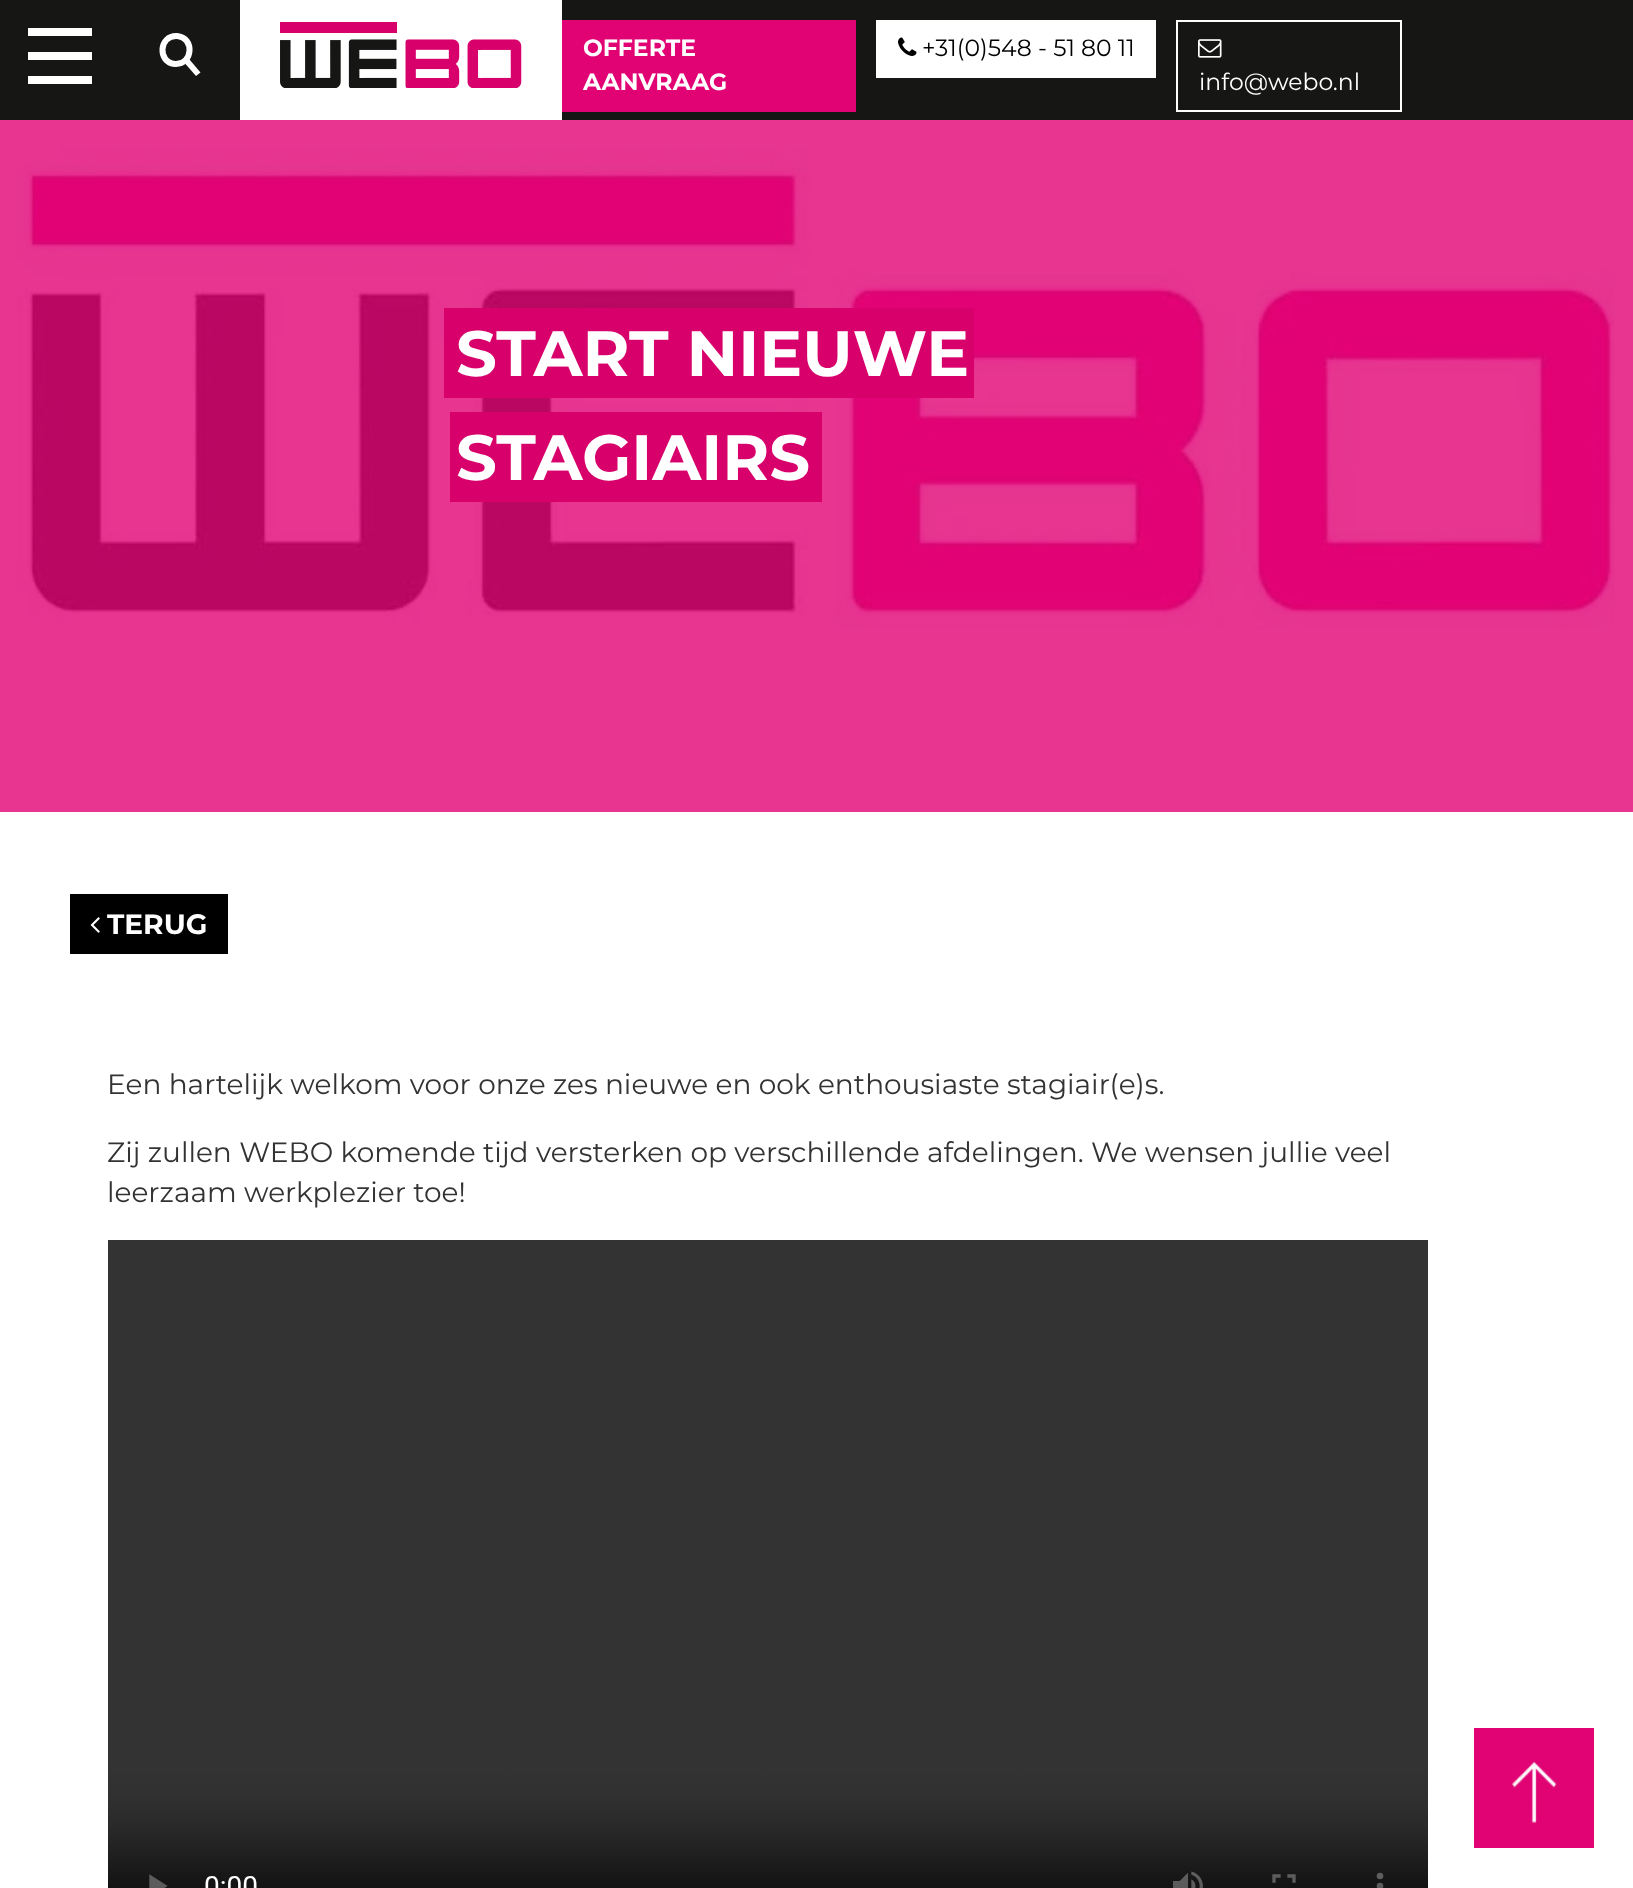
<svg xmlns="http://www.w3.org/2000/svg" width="1633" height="1888">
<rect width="100%" height="100%" fill="#fff"/>
<rect y="120" width="1633" height="692" fill="#e73590"/>
<rect width="240" height="120" fill="#161615"/>
<rect x="28" y="28" width="64" height="8" fill="#fff"/>
<rect x="28" y="52" width="64" height="8" fill="#fff"/>
<rect x="28" y="76" width="64" height="8" fill="#fff"/>
<image x="280" y="22" width="242" height="66" href="media/1.png"/>
<path d="M186.5 56l14 16.5l-4.5 3.5l-14-16z" fill="#fff"/>
<path d="M177 36c18 1.5 16 29-2 28c-18-1.5-16-29 2-28z" fill="none" stroke="#fff" stroke-width="6"/>
<rect x="562" width="1071" height="120" fill="#161615"/>
<rect x="562" y="20" width="294" height="92" fill="#e10274"/>
<text x="583" y="56" style="font-family:Montserrat;font-size:23.5px;font-weight:bold;fill:#fff">OFFERTE</text>
<text x="583" y="90" style="font-family:Montserrat;font-size:23.5px;font-weight:bold;fill:#fff">AANVRAAG</text>
<rect x="876" y="20" width="280" height="58" fill="#fff"/>
<image x="898" y="37" width="19" height="19" href="media/2.png"/>
<text x="922" y="56" style="font-family:Montserrat;font-size:23.5px;fill:#000">+31(0)548 - 51 80 11</text>
<rect x="1177" y="21" width="224" height="90" fill="none" stroke="#fff" stroke-width="2"/>
<image x="1198" y="39" width="24" height="19" href="media/3.png"/>
<text x="1199" y="90" style="font-family:Montserrat;font-size:23.5px;fill:#fff">info@webo.nl</text>
<image x="16" y="146" width="1599" height="484" href="media/4.png"/>
<rect x="450" y="308" width="524" height="90" fill="#d8006b"/>
<text x="456" y="376" style="font-family:Montserrat;font-size:64px;font-weight:bold;fill:#fff">START NIEUWE</text>
<rect x="444" y="308" width="6" height="90" fill="#d8006b"/>
<rect x="456" y="412" width="366" height="90" fill="#d8006b"/>
<text x="456" y="480" style="font-family:Montserrat;font-size:64px;font-weight:bold;fill:#fff">STAGIAIRS</text>
<rect x="450" y="412" width="6" height="90" fill="#d8006b"/>
<rect x="70" y="894" width="158" height="60" fill="#000"/>
<image x="90" y="917" width="10" height="16" href="media/5.png"/>
<text x="107" y="934" style="font-family:Montserrat;font-size:28px;font-weight:bold;fill:#fff">TERUG</text>
<text x="107" y="1094" style="font-family:Montserrat;font-size:28px;fill:#333">Een hartelijk welkom voor onze zes nieuwe en ook enthousiaste stagiair(e)s.</text>
<text x="107" y="1162" style="font-family:Montserrat;font-size:28px;fill:#333">Zij zullen WEBO komende tijd versterken op verschillende afdelingen. We wensen jullie veel</text>
<text x="107" y="1202" style="font-family:Montserrat;font-size:28px;fill:#333">leerzaam werkplezier toe!</text>
<image x="108" y="1240" width="1320" height="648" href="media/6.png"/>
<rect x="1474" y="1728" width="120" height="120" fill="#e10274"/>
<image x="1512" y="1762" width="45" height="61" href="media/7.png"/>
</svg>
